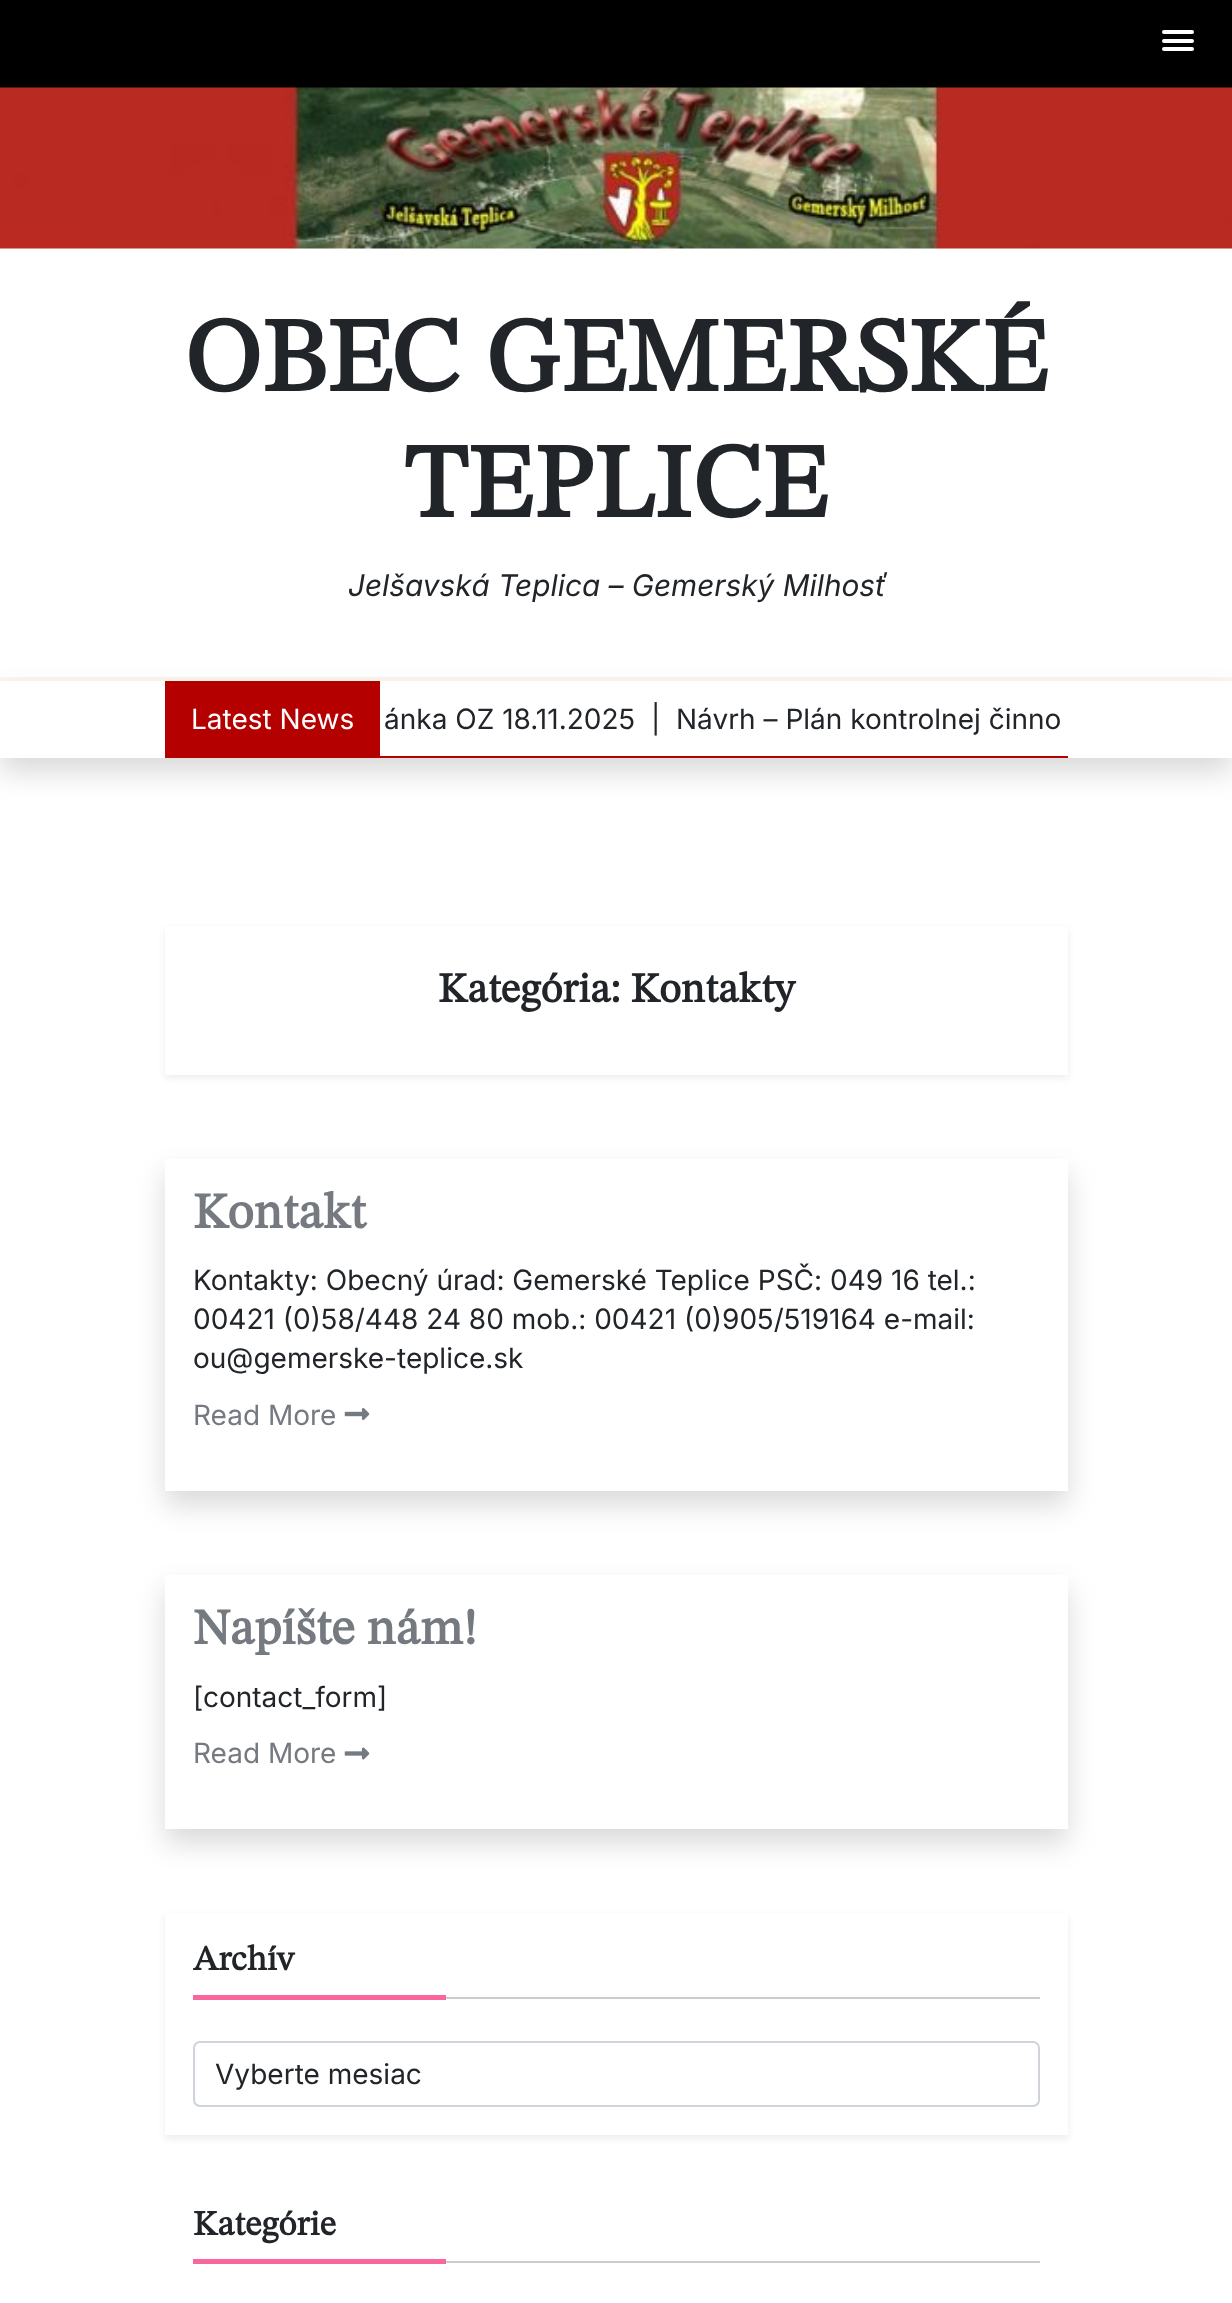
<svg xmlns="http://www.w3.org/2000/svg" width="1232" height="2303">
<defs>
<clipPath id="clip1"><path d="M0 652h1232v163h-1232zm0 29h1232v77h-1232z" clip-rule="evenodd"/></clipPath>
<clipPath id="clip2"><path d="M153 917h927v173h-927zm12 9h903v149h-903z" clip-rule="evenodd"/></clipPath>
<clipPath id="clip3"><path d="M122 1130h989v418h-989zm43 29h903v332h-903z" clip-rule="evenodd"/></clipPath>
<clipPath id="clip4"><path d="M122 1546h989v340h-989zm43 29h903v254h-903z" clip-rule="evenodd"/></clipPath>
<clipPath id="clip5"><path d="M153 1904h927v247h-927zm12 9h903v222h-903z" clip-rule="evenodd"/></clipPath>
</defs>
<rect width="100%" height="100%" fill="#fff"/>
<rect width="1232" height="88" fill="#000"/>
<rect x="1162" y="30" width="32" height="4" rx="2" fill="#fff"/>
<rect x="1162" y="39" width="32" height="4" rx="2" fill="#fff"/>
<rect x="1162" y="47" width="32" height="4" rx="2" fill="#fff"/>
<image x="0" y="87" width="1232" height="162" href="media/1.png"/>
<rect y="677" width="1232" height="4" fill="#fbf7ef"/>
<text x="184" y="391" style="font-family:STIX Two Math;font-size:105px;font-weight:bold;fill:#212529">OBEC GEMERSKÉ</text>
<text x="404" y="517" style="font-family:STIX Two Math;font-size:105px;font-weight:bold;fill:#212529">TEPLICE</text>
<text x="348" y="596" style="font-family:Inter;font-size:29.75px;font-style:italic;fill:#212529">Jelšavská Teplica – Gemerský Milhosť</text>
<g clip-path="url(#clip1)">
<rect y="695" width="1232" height="77" fill="#00000026" filter="blur(14px)"/>
</g>
<rect x="165" y="681" width="215" height="77" fill="#b50000"/>
<text x="191" y="729" style="font-family:Inter;font-size:28px;fill:#fff">Latest News</text>
<rect x="380" y="756" width="688" height="2" fill="#b50000"/>
<text x="384" y="729" style="font-family:Inter;font-size:28px;fill:#212529" xml:space="preserve">ánka OZ 18.11.2025  |</text>
<text x="676" y="729" style="font-family:Inter;font-size:28px;fill:#212529">Návrh – Plán kontrolnej činno</text>
<g clip-path="url(#clip2)">
<rect x="165" y="929" width="903" height="149" fill="#00000012" filter="blur(3.5px)"/>
</g>
<text x="438" y="1002" style="font-family:STIX Two Math;font-size:42px;font-weight:bold;fill:#212529">Kategória: Kontakty</text>
<g clip-path="url(#clip3)">
<rect x="165" y="1173" width="903" height="332" fill="#00000026" filter="blur(14px)"/>
</g>
<text x="193" y="1228" style="font-family:STIX Two Math;font-size:50.5px;font-weight:bold;fill:#747a80">Kontakt</text>
<text x="193" y="1290" style="font-family:Inter;font-size:28px;fill:#212529">Kontakty: Obecný úrad: Gemerské Teplice PSČ: 049 16 tel.:</text>
<text x="193" y="1329" style="font-family:Inter;font-size:28px;fill:#212529">00421 (0)58/448 24 80 mob.: 00421 (0)905/519164 e-mail:</text>
<text x="193" y="1368" style="font-family:Inter;font-size:28px;fill:#212529">ou@gemerske-teplice.sk</text>
<text x="193" y="1425" style="font-family:Inter;font-size:28px;fill:#747a80">Read More</text>
<image x="344" y="1408" width="26" height="12" href="media/2.png"/>
<g clip-path="url(#clip4)">
<rect x="165" y="1589" width="903" height="254" fill="#00000026" filter="blur(14px)"/>
</g>
<text x="193" y="1644" style="font-family:STIX Two Math;font-size:50.5px;font-weight:bold;fill:#747a80">Napíšte nám!</text>
<text x="193" y="1707" style="font-family:Inter;font-size:28px;fill:#212529">[contact_form]</text>
<text x="193" y="1763" style="font-family:Inter;font-size:28px;fill:#747a80">Read More</text>
<image x="344" y="1747" width="26" height="13" href="media/3.png"/>
<g clip-path="url(#clip5)">
<rect x="165" y="1916" width="903" height="223" fill="#00000012" filter="blur(3.5px)"/>
</g>
<rect x="446" y="1997" width="594" height="2" fill="#ccc"/>
<text x="193" y="1970" style="font-family:STIX Two Math;font-size:35px;font-weight:bold;fill:#212529">Archív</text>
<rect x="193" y="1995" width="253" height="5" fill="#f8669d"/>
<rect x="194" y="2042" width="845" height="64" rx="6" fill="none" stroke="#ced4da" stroke-width="2"/>
<text x="215" y="2084" style="font-family:Inter;font-size:28px;fill:#212529">Vyberte mesiac</text>
<rect x="446" y="2261" width="594" height="2" fill="#ccc"/>
<text x="193" y="2235" style="font-family:STIX Two Math;font-size:35px;font-weight:bold;fill:#212529">Kategórie</text>
<rect x="193" y="2259" width="253" height="5" fill="#f8669d"/>
</svg>
